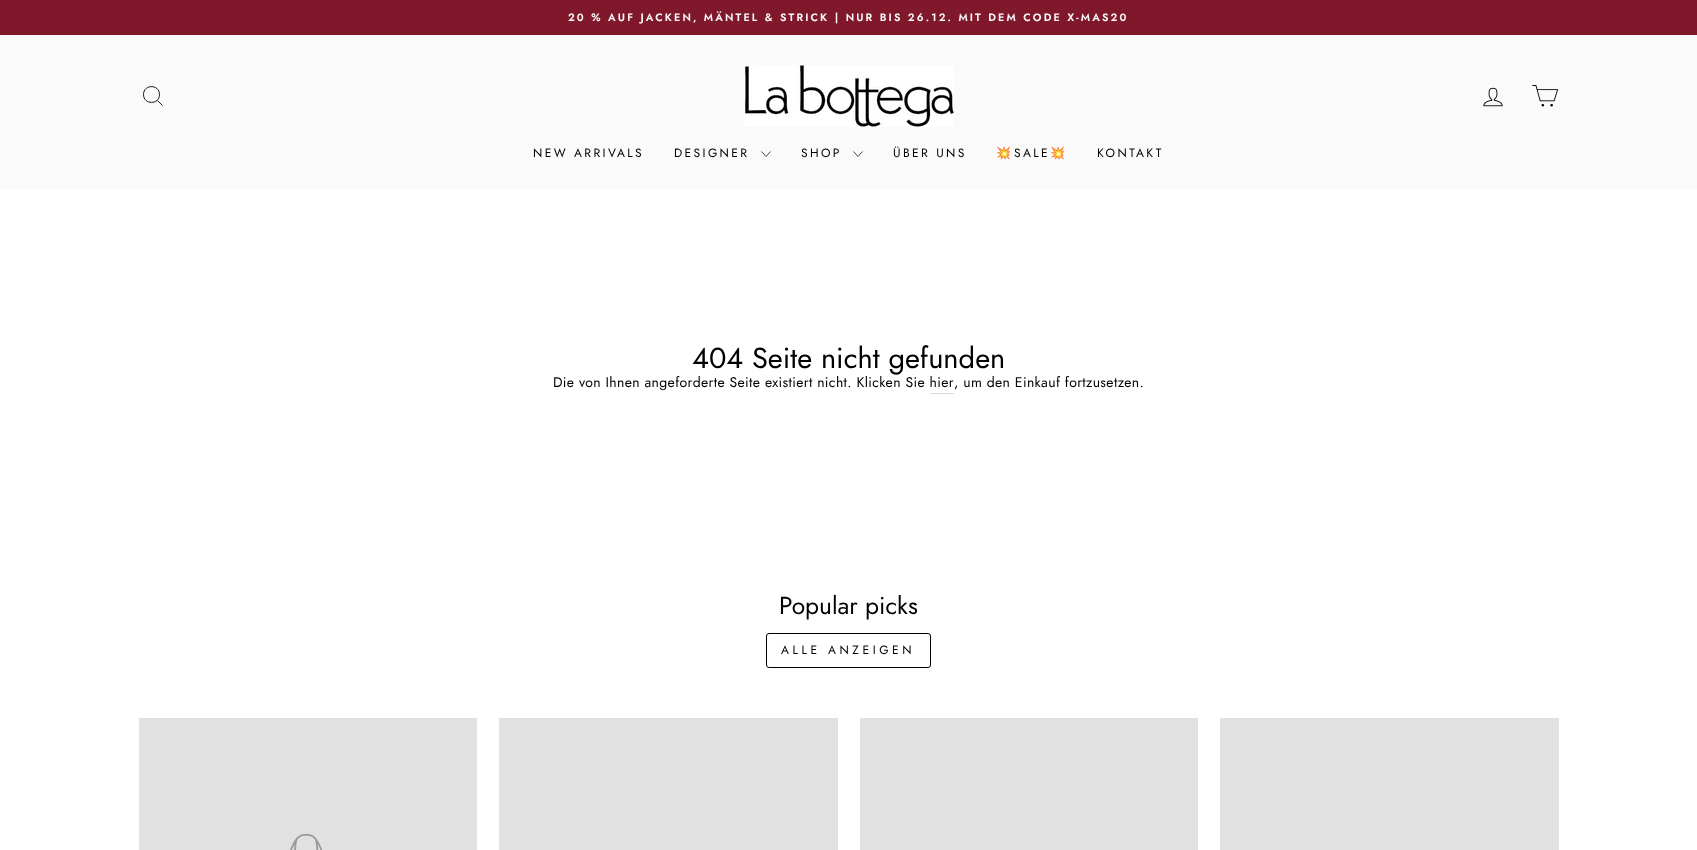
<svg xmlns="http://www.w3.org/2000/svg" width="1697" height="850">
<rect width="100%" height="100%" fill="#fff"/>
<rect width="1697" height="35" fill="#80182c"/>
<text x="568" y="21" style="font-family:Jost;font-size:10.7px;font-weight:600;letter-spacing:2.15px;fill:#fafafa">20 % AUF JACKEN, MÄNTEL &amp; STRICK | NUR BIS 26.12. MIT DEM CODE X-MAS20</text>
<rect y="35" width="1697" height="154" fill="#fafafa"/>
<path d="M159.5 94.5c0 10.5-16 10.5-16 0c0-10.5 16-10.5 16 0zm3 11l-5-5" fill="none" stroke="#000" stroke-width="0.9"/>
<image x="744" y="65" width="210" height="62" href="media/1.png"/>
<image x="1483" y="87" width="20" height="20" href="media/2.png"/>
<image x="1532" y="85" width="27" height="22" href="media/3.png"/>
<text x="533" y="157" style="font-family:Jost;font-size:12px;letter-spacing:2.4px;fill:#000">NEW ARRIVALS</text>
<text x="674" y="157" style="font-family:Jost;font-size:12px;letter-spacing:2.4px;fill:#000">DESIGNER</text>
<path d="M761.5 151.5l4.5 5l4.5-5" fill="none" stroke="#000" stroke-width="0.7"/>
<text x="801" y="157" style="font-family:Jost;font-size:12px;letter-spacing:2.4px;fill:#000">SHOP</text>
<path d="M853.5 151.5l4.5 5l4.5-5" fill="none" stroke="#000" stroke-width="0.7"/>
<text x="893" y="157" style="font-family:Jost;font-size:12px;letter-spacing:2.4px;fill:#000">ÜBER UNS</text>
<text x="996" y="157" style="font-family:Noto Color Emoji;font-size:12px;letter-spacing:2.4px;fill:#000">💥</text>
<text x="1014" y="157" style="font-family:Jost;font-size:12px;letter-spacing:2.4px;fill:#000">SALE</text>
<text x="1050" y="157" style="font-family:Noto Color Emoji;font-size:12px;letter-spacing:2.4px;fill:#000">💥</text>
<text x="1097" y="157" style="font-family:Jost;font-size:12px;letter-spacing:2.4px;fill:#000">KONTAKT</text>
<text x="692" y="368" style="font-family:Jost;font-size:29px;fill:#000">404 Seite nicht gefunden</text>
<text x="553" y="387" style="font-family:Jost;font-size:14px;letter-spacing:0.35px;fill:#000">Die von Ihnen angeforderte Seite existiert nicht. Klicken Sie hier</text>
<text x="954" y="387" style="font-family:Jost;font-size:14px;letter-spacing:0.35px;fill:#000">, um den Einkauf fortzusetzen.</text>
<rect x="930" y="393" width="24" height="1" fill="#d9d9d9"/>
<text x="779" y="614" style="font-family:Jost;font-size:24.5px;fill:#000">Popular picks</text>
<rect x="766.5" y="633.5" width="164" height="34" rx="2.5" fill="none" stroke="#000"/>
<text x="781" y="654" style="font-family:Jost;font-size:12px;letter-spacing:3.6px;fill:#000">ALLE ANZEIGEN</text>
<rect x="139" y="718" width="338" height="132" fill="#e1e1e1"/>
<image x="290" y="834" width="32" height="16" href="media/4.png"/>
<rect x="499" y="718" width="339" height="132" fill="#e1e1e1"/>
<rect x="860" y="718" width="338" height="132" fill="#e1e1e1"/>
<rect x="1220" y="718" width="339" height="132" fill="#e1e1e1"/>
</svg>
